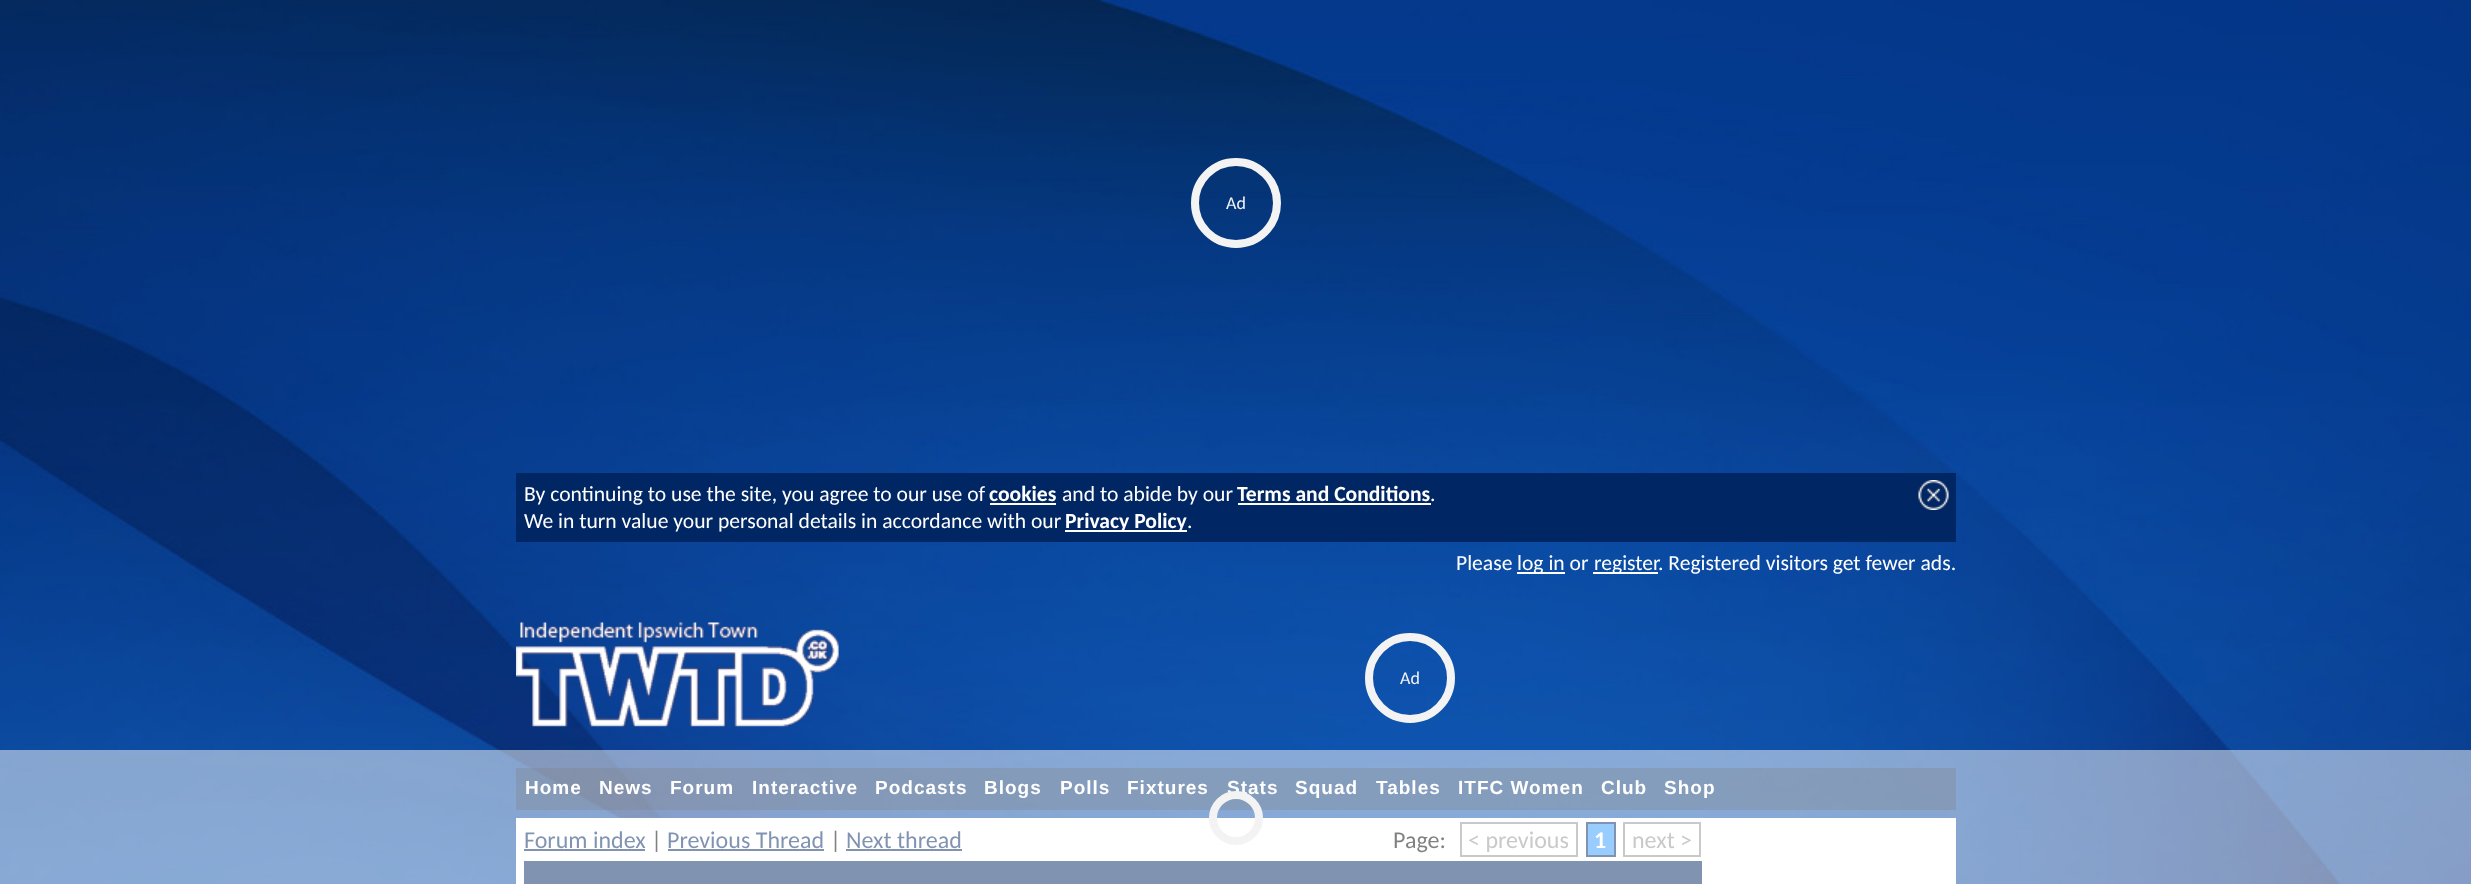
<svg xmlns="http://www.w3.org/2000/svg" width="2471" height="884">
<rect width="100%" height="100%" fill="#fff"/>
<image x="0" y="0" width="2471" height="884" href="media/1.png"/>
<circle cx="1236" cy="203" r="41" fill="none" stroke="#f3f3f3" stroke-width="8"/>
<text x="1226" y="209" style="font-family:Carlito;font-size:18px;fill:#f3f3f3">Ad</text>
<rect x="516" y="473" width="1440" height="69" fill="#002663"/>
<text x="524" y="501" style="font-family:Carlito;font-size:21.6px;fill:#fff">By continuing to use the site, you agree to our use of</text>
<text x="989" y="501" style="font-family:Carlito;font-size:21.6px;font-weight:bold;fill:#fff">cookies</text>
<rect x="990" y="503" width="66" height="2" fill="#fff"/>
<text x="1062" y="501" style="font-family:Carlito;font-size:21.6px;fill:#fff">and to abide by our</text>
<text x="1237" y="501" style="font-family:Carlito;font-size:21.6px;font-weight:bold;fill:#fff">Terms and Conditions</text>
<rect x="1238" y="503" width="193" height="2" fill="#fff"/>
<text x="1430" y="501" style="font-family:Carlito;font-size:21.6px;fill:#fff">.</text>
<image x="1918" y="480" width="31" height="30" href="media/2.png"/>
<text x="524" y="528" style="font-family:Carlito;font-size:21.6px;fill:#fff">We in turn value your personal details in accordance with our</text>
<rect x="1065" y="530" width="122" height="2" fill="#fff"/>
<text x="1065" y="528" style="font-family:Carlito;font-size:21.6px;font-weight:bold;fill:#fff">Privacy Policy</text>
<text x="1187" y="528" style="font-family:Carlito;font-size:21.6px;fill:#fff">.</text>
<text x="1456" y="570" style="font-family:Carlito;font-size:21.6px;fill:#fff">Please</text>
<rect x="1517" y="572" width="48" height="2" fill="#fff"/>
<text x="1517" y="570" style="font-family:Carlito;font-size:21.6px;fill:#fff">log in or</text>
<rect x="1593" y="572" width="65" height="2" fill="#fff"/>
<text x="1594" y="570" style="font-family:Carlito;font-size:21.6px;fill:#fff">register</text>
<text x="1658" y="570" style="font-family:Carlito;font-size:21.6px;fill:#fff">. Registered visitors get fewer ads.</text>
<image x="516" y="622" width="323" height="105" href="media/3.png"/>
<circle cx="1410" cy="678" r="41" fill="none" stroke="#f3f3f3" stroke-width="8"/>
<text x="1400" y="684" style="font-family:Carlito;font-size:18px;fill:#f3f3f3">Ad</text>
<rect x="516" y="768" width="1440" height="42" fill="#0000004d"/>
<text x="525" y="794" style="font-family:Liberation Sans;font-size:19px;font-weight:bold;letter-spacing:1px;fill:#fff">Home</text>
<text x="599" y="794" style="font-family:Liberation Sans;font-size:19px;font-weight:bold;letter-spacing:1px;fill:#fff">News</text>
<text x="670" y="794" style="font-family:Liberation Sans;font-size:19px;font-weight:bold;letter-spacing:1px;fill:#fff">Forum</text>
<text x="752" y="794" style="font-family:Liberation Sans;font-size:19px;font-weight:bold;letter-spacing:1px;fill:#fff">Interactive</text>
<text x="875" y="794" style="font-family:Liberation Sans;font-size:19px;font-weight:bold;letter-spacing:1px;fill:#fff">Podcasts</text>
<text x="984" y="794" style="font-family:Liberation Sans;font-size:19px;font-weight:bold;letter-spacing:1px;fill:#fff">Blogs</text>
<text x="1060" y="794" style="font-family:Liberation Sans;font-size:19px;font-weight:bold;letter-spacing:1px;fill:#fff">Polls</text>
<text x="1127" y="794" style="font-family:Liberation Sans;font-size:19px;font-weight:bold;letter-spacing:1px;fill:#fff">Fixtures</text>
<text x="1227" y="794" style="font-family:Liberation Sans;font-size:19px;font-weight:bold;letter-spacing:1px;fill:#fff">Stats</text>
<text x="1295" y="794" style="font-family:Liberation Sans;font-size:19px;font-weight:bold;letter-spacing:1px;fill:#fff">Squad</text>
<text x="1376" y="794" style="font-family:Liberation Sans;font-size:19px;font-weight:bold;letter-spacing:1px;fill:#fff">Tables</text>
<text x="1458" y="794" style="font-family:Liberation Sans;font-size:19px;font-weight:bold;letter-spacing:1px;fill:#fff">ITFC Women</text>
<text x="1601" y="794" style="font-family:Liberation Sans;font-size:19px;font-weight:bold;letter-spacing:1px;fill:#fff">Club</text>
<text x="1664" y="794" style="font-family:Liberation Sans;font-size:19px;font-weight:bold;letter-spacing:1px;fill:#fff">Shop</text>
<rect x="516" y="818" width="1440" height="66" fill="#fff"/>
<text x="524" y="848" style="font-family:Carlito;font-size:24px;fill:#002663">Forum index</text>
<rect x="524" y="849" width="121" height="2" fill="#002663"/>
<text x="651" y="848" style="font-family:Carlito;font-size:24px;fill:#000">|</text>
<text x="667" y="848" style="font-family:Carlito;font-size:24px;fill:#002663">Previous Thread</text>
<rect x="668" y="849" width="156" height="2" fill="#002663"/>
<text x="830" y="848" style="font-family:Carlito;font-size:24px;fill:#000">|</text>
<text x="846" y="848" style="font-family:Carlito;font-size:24px;fill:#002663">Next thread</text>
<rect x="846" y="849" width="116" height="2" fill="#002663"/>
<text x="1393" y="848" style="font-family:Carlito;font-size:24px;fill:#000">Page:</text>
<rect x="1461" y="823" width="116" height="33" fill="none" stroke="#929292" stroke-width="2"/>
<text x="1468" y="848" style="font-family:Carlito;font-size:24px;fill:#929292">&lt; previous</text>
<rect x="1587" y="823" width="28" height="33" fill="#3298ff" stroke="#002663" stroke-width="2"/>
<text x="1594" y="848" style="font-family:Carlito;font-size:24px;font-weight:bold;fill:#fff">1</text>
<rect x="1624" y="823" width="76" height="33" fill="none" stroke="#929292" stroke-width="2"/>
<text x="1632" y="848" style="font-family:Carlito;font-size:24px;fill:#929292">next &gt;</text>
<rect x="524" y="861" width="1177" height="2" fill="#002663"/>
<rect x="1700" y="861" width="2" height="23" fill="#002663"/>
<rect x="524" y="861" width="7" height="23" fill="#002663"/>
<rect x="531" y="863" width="1169" height="21" fill="#002663"/>
<rect y="750" width="2471" height="134" fill="#ffffff80"/>
<circle cx="1236" cy="818" r="23" fill="none" stroke="#f3f3f3" stroke-width="8"/>
</svg>
